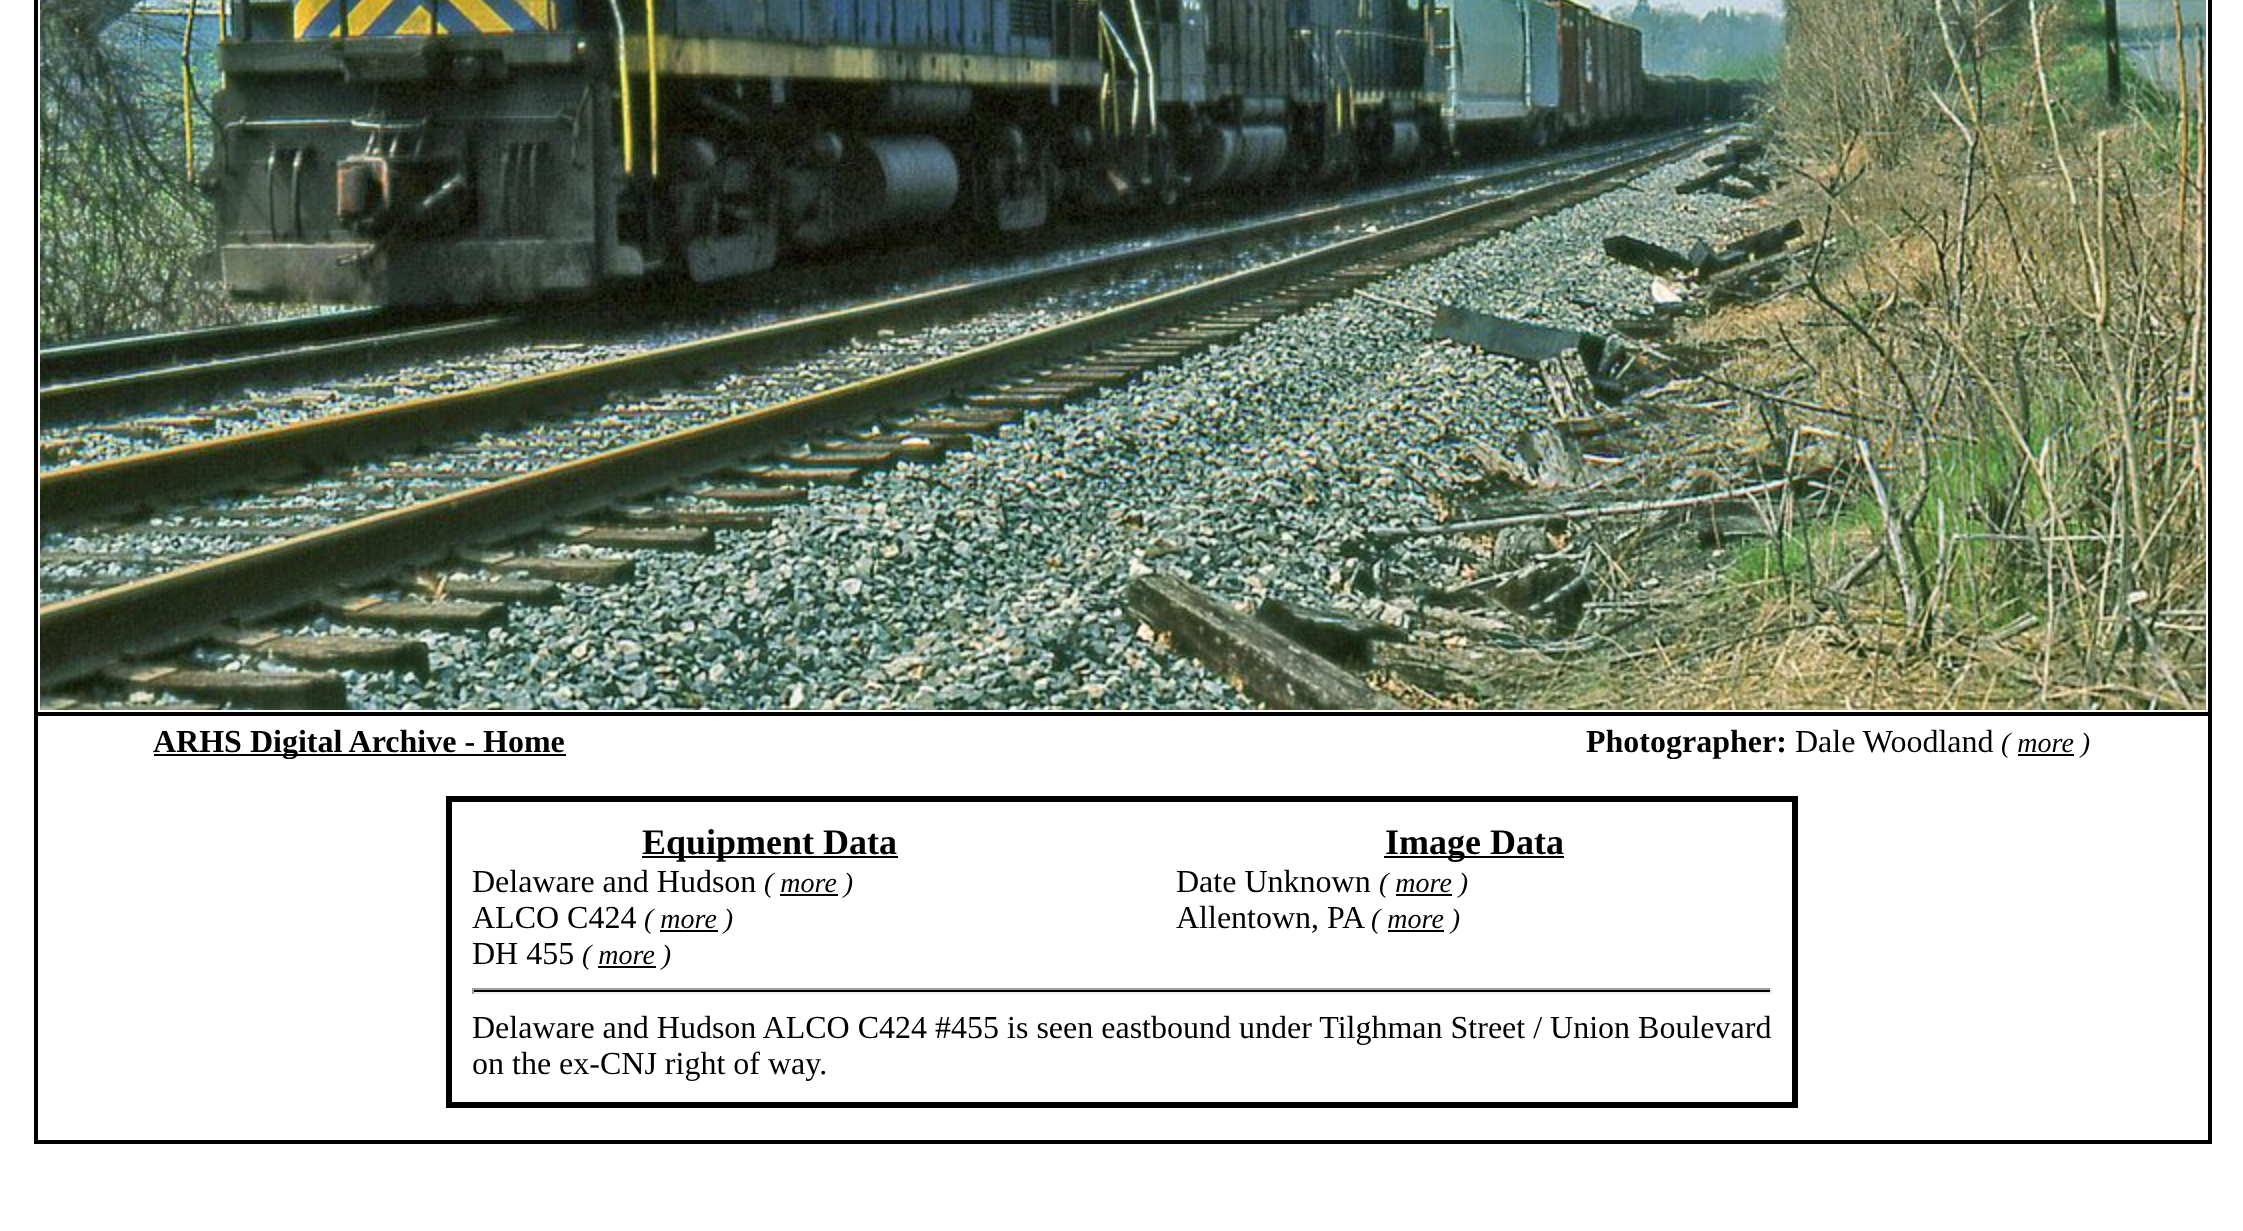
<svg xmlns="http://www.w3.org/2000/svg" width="2243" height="1231">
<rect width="100%" height="100%" fill="#fff"/>
<rect x="2208" width="4" height="1144" fill="#000"/>
<rect x="34" y="1140" width="2178" height="4" fill="#000"/>
<rect x="34" width="4" height="1144" fill="#000"/>
<rect x="34" y="712" width="2178" height="4" fill="#000"/>
<image x="40" y="0" width="2166" height="710" href="media/1.png"/>
<rect x="154" y="754" width="412" height="2" fill="#000"/>
<text x="153" y="752" style="font-family:Liberation Serif;font-size:32px;font-weight:bold;fill:#000">ARHS Digital Archive - Home</text>
<text x="1586" y="752" style="font-family:Liberation Serif;font-size:32px;font-weight:bold;fill:#000">Photographer:</text>
<text x="1795" y="752" style="font-family:Liberation Serif;font-size:32px;fill:#000">Dale Woodland</text>
<text x="2001" y="752" style="font-family:Liberation Serif;font-size:28px;font-style:italic;fill:#000">( more )</text>
<rect x="2018" y="754" width="56" height="2" fill="#000"/>
<rect x="449" y="799" width="1346" height="306" fill="none" stroke="#000" stroke-width="6"/>
<rect x="642" y="856" width="256" height="2" fill="#000"/>
<text x="642" y="854" style="font-family:Liberation Serif;font-size:36px;font-weight:bold;fill:#000">Equipment Data</text>
<rect x="1384" y="856" width="180" height="2" fill="#000"/>
<text x="1385" y="854" style="font-family:Liberation Serif;font-size:36px;font-weight:bold;fill:#000">Image Data</text>
<text x="472" y="892" style="font-family:Liberation Serif;font-size:32px;fill:#000">Delaware and Hudson</text>
<text x="764" y="892" style="font-family:Liberation Serif;font-size:28px;font-style:italic;fill:#000">( more )</text>
<rect x="780" y="894" width="58" height="2" fill="#000"/>
<text x="1176" y="892" style="font-family:Liberation Serif;font-size:32px;fill:#000">Date Unknown</text>
<text x="1379" y="892" style="font-family:Liberation Serif;font-size:28px;font-style:italic;fill:#000">( more )</text>
<rect x="1396" y="894" width="56" height="2" fill="#000"/>
<text x="472" y="928" style="font-family:Liberation Serif;font-size:32px;fill:#000">ALCO C424</text>
<text x="644" y="928" style="font-family:Liberation Serif;font-size:28px;font-style:italic;fill:#000">( more )</text>
<rect x="660" y="930" width="58" height="2" fill="#000"/>
<text x="1176" y="928" style="font-family:Liberation Serif;font-size:32px;fill:#000">Allentown, PA</text>
<text x="1371" y="928" style="font-family:Liberation Serif;font-size:28px;font-style:italic;fill:#000">( more )</text>
<rect x="1388" y="930" width="56" height="2" fill="#000"/>
<text x="472" y="964" style="font-family:Liberation Serif;font-size:32px;fill:#000">DH 455</text>
<text x="582" y="964" style="font-family:Liberation Serif;font-size:28px;font-style:italic;fill:#000">( more )</text>
<rect x="598" y="966" width="58" height="2" fill="#000"/>
<rect x="472" y="990" width="1300" height="2" fill="#000"/>
<rect x="472" y="988" width="1300" height="2" fill="#9f9f9f"/>
<rect x="1770" y="988" width="2" height="6" fill="#eee"/>
<rect x="472" y="992" width="1300" height="2" fill="#eee"/>
<rect x="472" y="988" width="2" height="6" fill="#9f9f9f"/>
<text x="472" y="1038" style="font-family:Liberation Serif;font-size:32px;fill:#000">Delaware and Hudson ALCO C424 #455 is seen eastbound under Tilghman Street / Union Boulevard</text>
<text x="472" y="1074" style="font-family:Liberation Serif;font-size:32px;fill:#000">on the ex-CNJ right of way.</text>
</svg>
